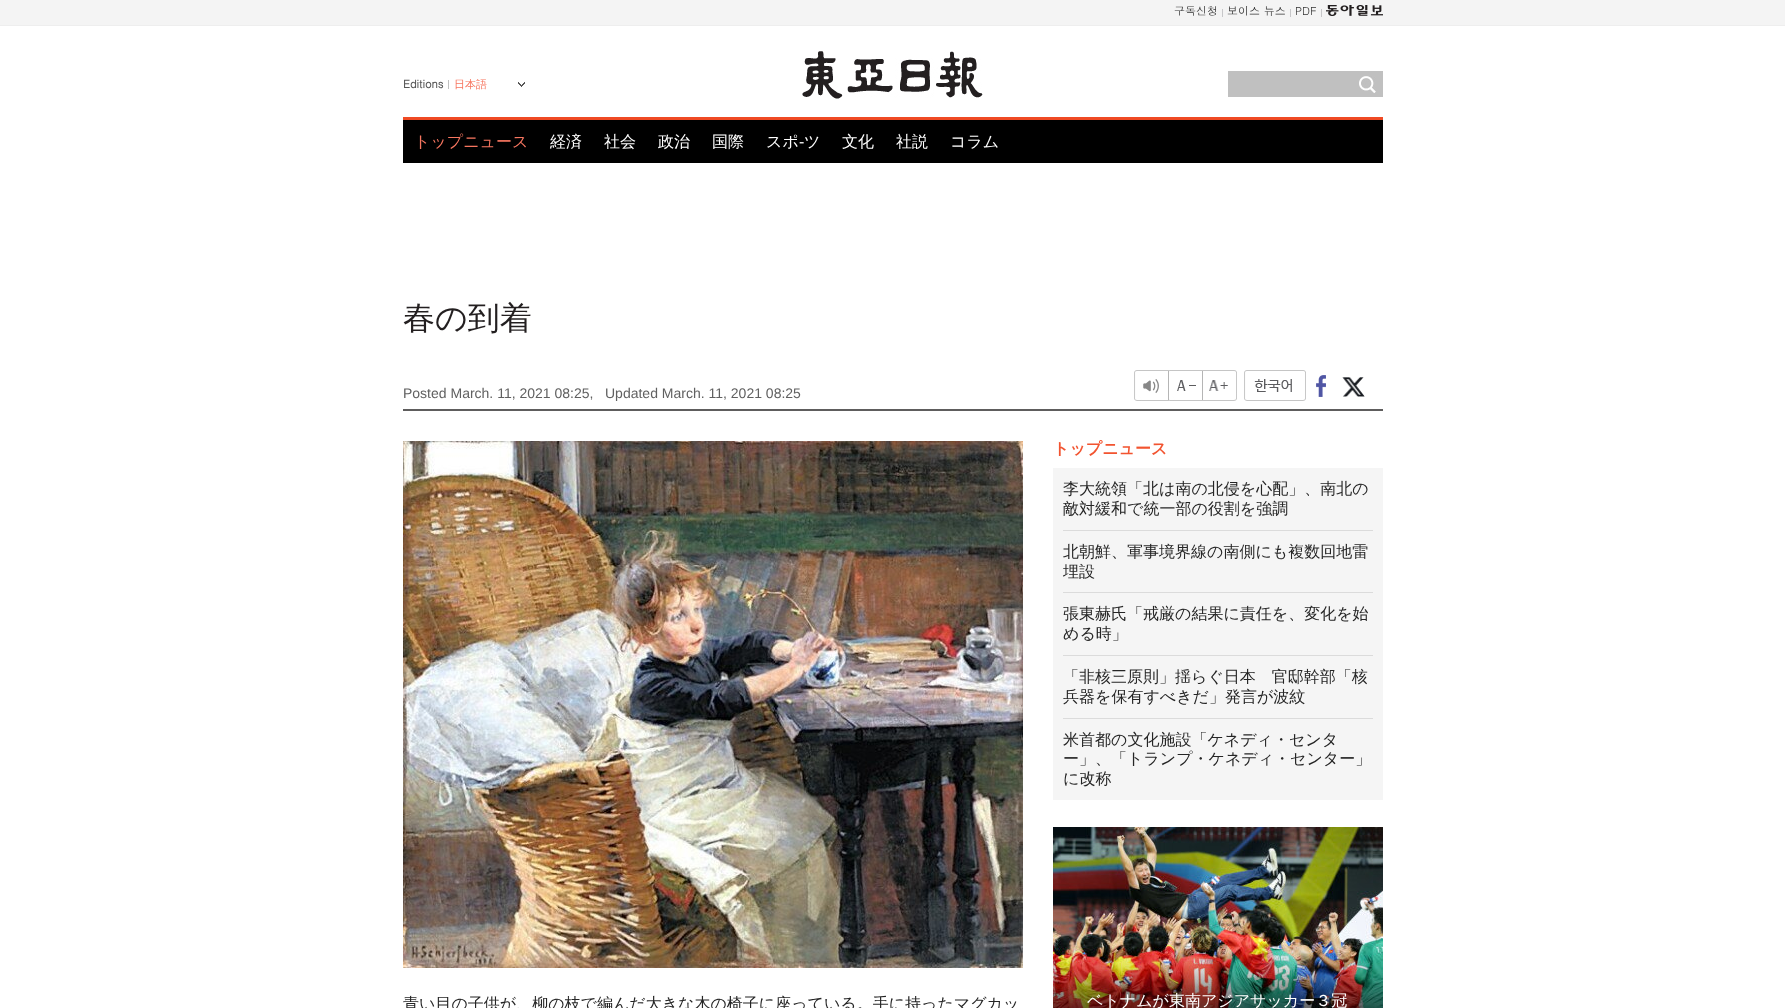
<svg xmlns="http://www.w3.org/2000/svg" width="1785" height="1008">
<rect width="100%" height="100%" fill="#fff"/>
<rect width="1785" height="25" fill="#f4f4f4"/>
<rect y="25" width="1785" height="1" fill="#eee"/>
<rect x="1222" y="9" width="1" height="8" fill="#c7c7c9"/>
<text x="1174" y="15" style="font-family:Dotum;font-size:11px;fill:#333">구독신청</text>
<rect x="1290" y="9" width="1" height="8" fill="#c7c7c9"/>
<text x="1227" y="15" style="font-family:Dotum;font-size:11px;fill:#333">보이스 뉴스</text>
<rect x="1321" y="9" width="1" height="8" fill="#c7c7c9"/>
<text x="1295" y="15" style="font-family:Dotum;font-size:11px;fill:#333">PDF</text>
<image x="1326" y="5" width="57" height="11" href="media/1.png"/>
<rect x="448" y="80" width="1" height="9" fill="#c0c0c0"/>
<text x="403" y="88" style="font-family:Dotum;font-size:11px;font-weight:bold;fill:#575757">Editions</text>
<image x="518" y="82" width="7" height="5" href="media/2.png"/>
<text x="454" y="88" style="font-family:WenQuanYi Zen Hei;font-size:11px;font-weight:500;fill:#f77660">日本語</text>
<image x="802" y="51" width="181" height="48" href="media/3.png"/>
<rect x="1228" y="71" width="155" height="26" fill="#c0c0c0"/>
<image x="1359" y="76" width="17" height="17" href="media/4.png"/>
<rect x="403" y="120" width="980" height="43" fill="#000"/>
<rect x="403" y="117" width="980" height="3" fill="#ef4a24"/>
<text x="414" y="147" style="font-family:WenQuanYi Zen Hei;font-size:16px;font-weight:500;fill:#f77660">トップニュース</text>
<text x="550" y="147" style="font-family:WenQuanYi Zen Hei;font-size:16px;font-weight:500;fill:#fff">経済</text>
<text x="604" y="147" style="font-family:WenQuanYi Zen Hei;font-size:16px;font-weight:500;fill:#fff">社会</text>
<text x="658" y="147" style="font-family:WenQuanYi Zen Hei;font-size:16px;font-weight:500;fill:#fff">政治</text>
<text x="712" y="147" style="font-family:WenQuanYi Zen Hei;font-size:16px;font-weight:500;fill:#fff">国際</text>
<text x="766" y="147" style="font-family:WenQuanYi Zen Hei;font-size:16px;font-weight:500;fill:#fff">スポ</text>
<text x="799" y="147" style="font-family:Liberation Sans;font-size:16px;fill:#fff">-</text>
<text x="804" y="147" style="font-family:WenQuanYi Zen Hei;font-size:16px;font-weight:500;fill:#fff">ツ</text>
<text x="842" y="147" style="font-family:WenQuanYi Zen Hei;font-size:16px;font-weight:500;fill:#fff">文化</text>
<text x="896" y="147" style="font-family:WenQuanYi Zen Hei;font-size:16px;font-weight:500;fill:#fff">社説</text>
<text x="950" y="147" style="font-family:WenQuanYi Zen Hei;font-size:16px;font-weight:500;fill:#fff">コラム</text>
<rect x="403" y="409" width="980" height="2" fill="#5e5d5d"/>
<text x="403" y="329" style="font-family:WenQuanYi Zen Hei;font-size:32px;font-weight:500;fill:#231f20">春の到着</text>
<text x="403" y="398" style="font-family:Liberation Sans;font-size:14px;fill:#606060">Posted March. 11, 2021 08:25,</text>
<text x="605" y="398" style="font-family:Liberation Sans;font-size:14px;fill:#606060">Updated March. 11, 2021 08:25</text>
<image x="1134" y="370" width="34" height="31" href="media/5.png"/>
<image x="1168" y="370" width="35" height="31" href="media/6.png"/>
<image x="1203" y="370" width="34" height="31" href="media/7.png"/>
<image x="1244" y="370" width="62" height="31" href="media/8.png"/>
<image x="1316" y="375" width="10" height="22" href="media/9.png"/>
<image x="1342" y="377" width="23" height="20" href="media/10.png"/>
<image x="403" y="441" width="620" height="527" href="media/11.png"/>
<text x="403" y="1009" style="font-family:WenQuanYi Zen Hei;font-size:16px;font-weight:500;fill:#252525">青い目の子供が、柳の枝で編んだ大きな木の椅子に座っている。手に持ったマグカッ</text>
<text x="1053" y="454" style="font-family:WenQuanYi Zen Hei;font-size:16px;font-weight:bold;fill:#f25430">トップニュース</text>
<rect x="1053" y="468" width="330" height="332" fill="#f5f5f5"/>
<text x="1063" y="494" style="font-family:WenQuanYi Zen Hei;font-size:16px;font-weight:500;fill:#252525">李大統領「北は南の北侵を心配」、南北の</text>
<text x="1063" y="514" style="font-family:WenQuanYi Zen Hei;font-size:16px;font-weight:500;fill:#252525">敵対緩和で統一部の役割を強調</text>
<rect x="1063" y="530" width="310" height="1" fill="#dbdbdb"/>
<text x="1063" y="557" style="font-family:WenQuanYi Zen Hei;font-size:16px;font-weight:500;fill:#252525">北朝鮮、軍事境界線の南側にも複数回地雷</text>
<text x="1063" y="577" style="font-family:WenQuanYi Zen Hei;font-size:16px;font-weight:500;fill:#252525">埋設</text>
<rect x="1063" y="592" width="310" height="1" fill="#dbdbdb"/>
<text x="1063" y="619" style="font-family:WenQuanYi Zen Hei;font-size:16px;font-weight:500;fill:#252525">張東赫氏「戒厳の結果に責任を、変化を始</text>
<text x="1063" y="639" style="font-family:WenQuanYi Zen Hei;font-size:16px;font-weight:500;fill:#252525">める時」</text>
<rect x="1063" y="655" width="310" height="1" fill="#dbdbdb"/>
<text x="1063" y="682" style="font-family:WenQuanYi Zen Hei;font-size:16px;font-weight:500;fill:#252525">「非核三原則」揺らぐ日本　官邸幹部「核</text>
<text x="1063" y="702" style="font-family:WenQuanYi Zen Hei;font-size:16px;font-weight:500;fill:#252525">兵器を保有すべきだ」発言が波紋</text>
<rect x="1063" y="718" width="310" height="1" fill="#dbdbdb"/>
<text x="1063" y="745" style="font-family:WenQuanYi Zen Hei;font-size:16px;font-weight:500;fill:#252525">米首都の文化施設「ケネディ・センタ</text>
<text x="1063" y="764" style="font-family:WenQuanYi Zen Hei;font-size:16px;font-weight:500;fill:#252525">ー」、「トランプ・ケネディ・センター」</text>
<text x="1063" y="784" style="font-family:WenQuanYi Zen Hei;font-size:16px;font-weight:500;fill:#252525">に改称</text>
<image x="1053" y="827" width="330" height="181" href="media/12.png"/>
<image x="1053" y="945" width="330" height="63" href="media/13.png"/>
<text x="1087" y="1006" style="font-family:WenQuanYi Zen Hei;font-size:16px;font-weight:500;fill:#fff">ベトナムが東南アジアサッカー３冠</text>
</svg>
